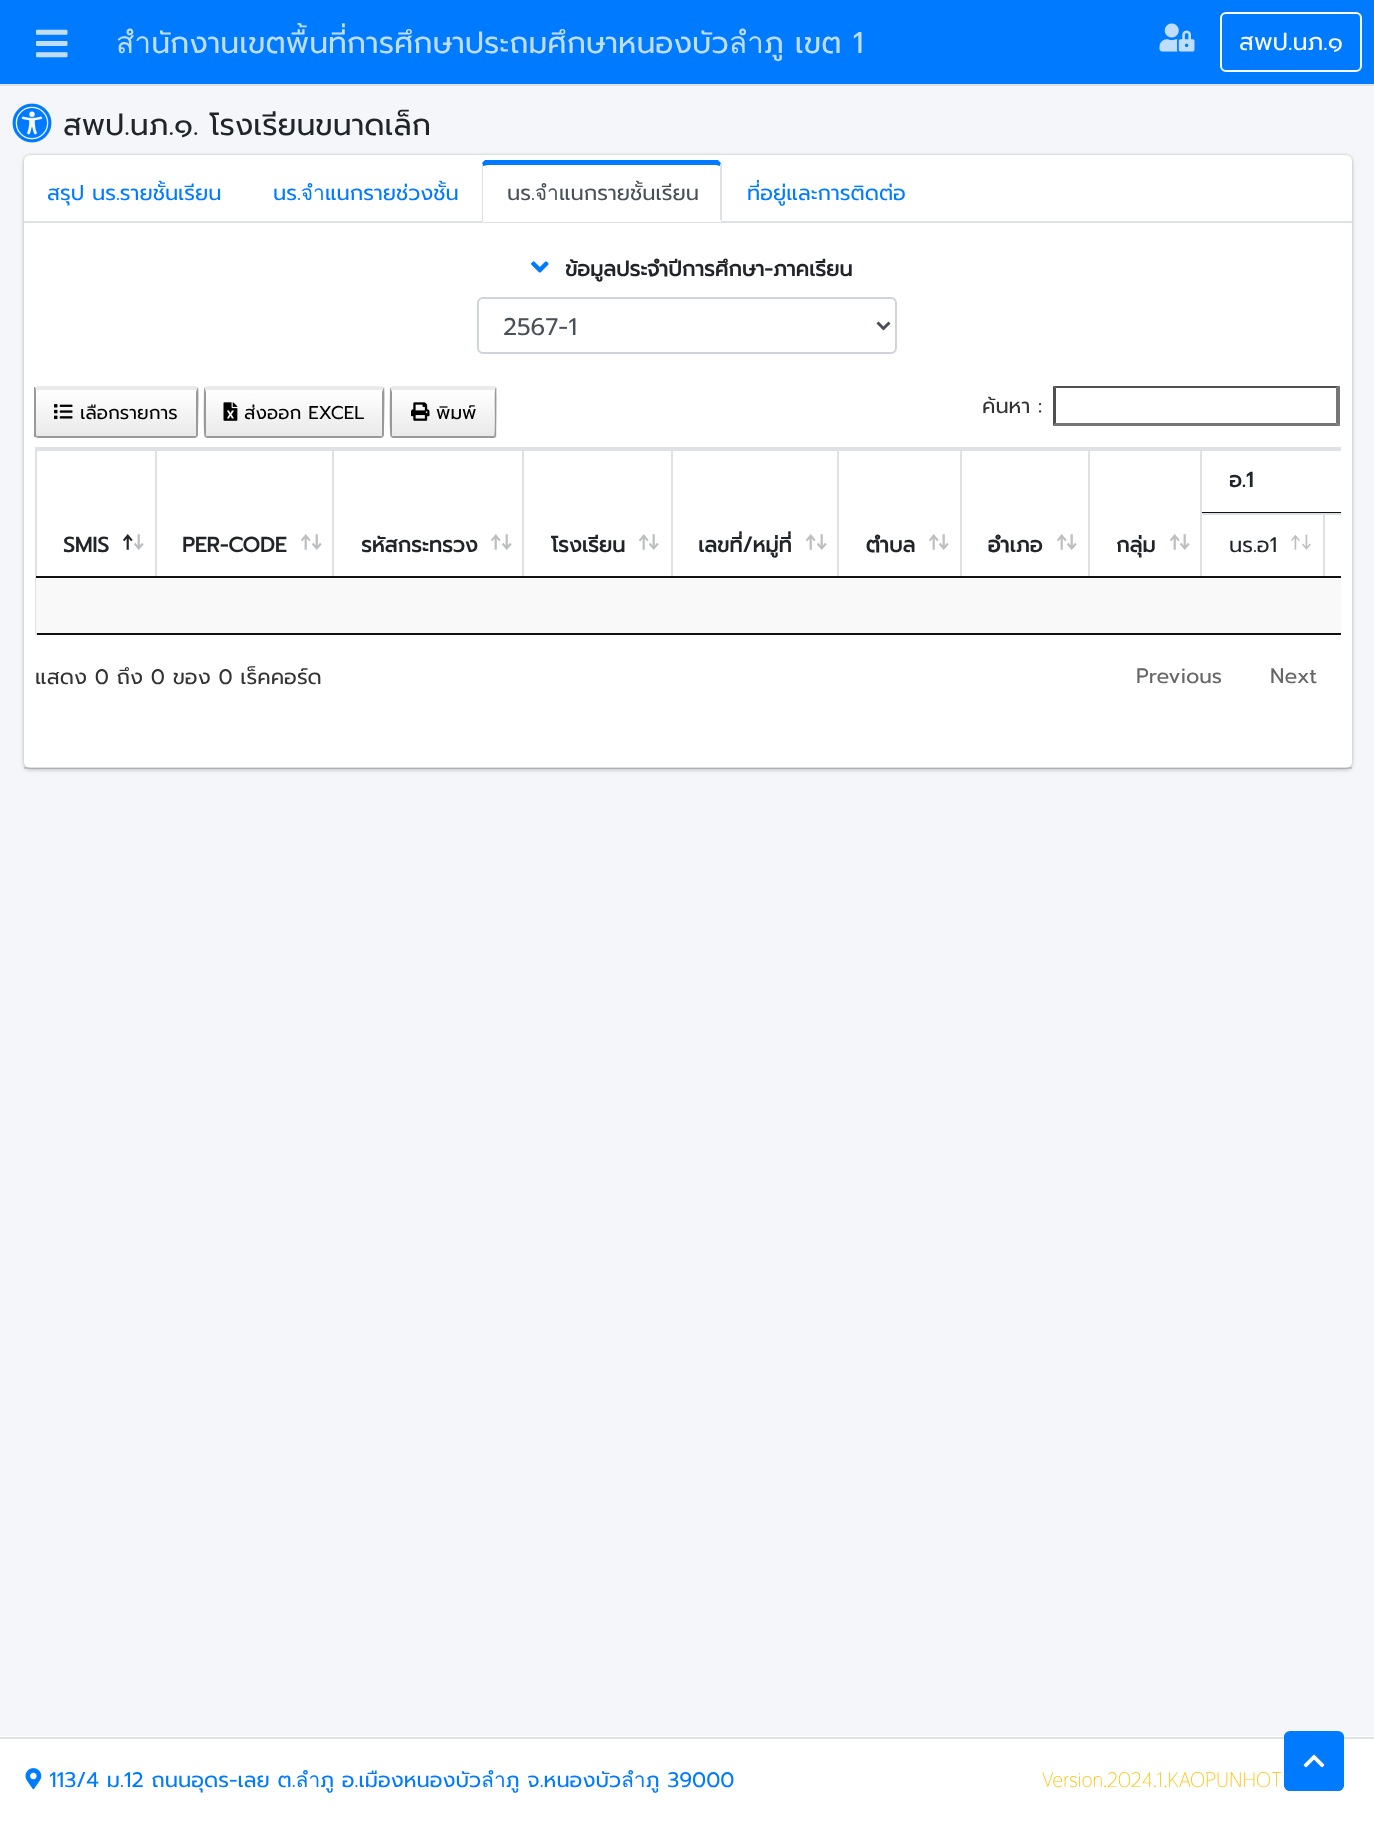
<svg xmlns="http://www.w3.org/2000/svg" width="1374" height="1821">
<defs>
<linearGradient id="g1" gradientUnits="userSpaceOnUse" x1="116" y1="344" x2="116" y2="390"><stop offset="0" stop-color="#fff"/><stop offset="1" stop-color="#e9e9e9"/></linearGradient>
<clipPath id="clip1"><rect x="35" y="386" width="163" height="52" rx="3"/></clipPath>
<linearGradient id="g2" gradientUnits="userSpaceOnUse" x1="116" y1="390" x2="116" y2="437"><stop offset="0" stop-color="#fff"/><stop offset="1" stop-color="#e9e9e9"/></linearGradient>
<linearGradient id="g3" gradientUnits="userSpaceOnUse" x1="294" y1="344" x2="294" y2="390"><stop offset="0" stop-color="#fff"/><stop offset="1" stop-color="#e9e9e9"/></linearGradient>
<clipPath id="clip2"><rect x="204" y="386" width="180" height="52" rx="3"/></clipPath>
<linearGradient id="g4" gradientUnits="userSpaceOnUse" x1="294" y1="390" x2="294" y2="437"><stop offset="0" stop-color="#fff"/><stop offset="1" stop-color="#e9e9e9"/></linearGradient>
<linearGradient id="g5" gradientUnits="userSpaceOnUse" x1="443" y1="344" x2="443" y2="390"><stop offset="0" stop-color="#fff"/><stop offset="1" stop-color="#e9e9e9"/></linearGradient>
<clipPath id="clip3"><rect x="390" y="386" width="107" height="52" rx="3"/></clipPath>
<linearGradient id="g6" gradientUnits="userSpaceOnUse" x1="443" y1="390" x2="443" y2="437"><stop offset="0" stop-color="#fff"/><stop offset="1" stop-color="#e9e9e9"/></linearGradient>
</defs>
<rect width="100%" height="100%" fill="#fff"/>
<rect width="1374" height="84" fill="#007bff"/>
<rect y="84" width="1374" height="2" fill="#dee2e6"/>
<image x="36" y="29" width="32" height="29" href="media/1.png"/>
<text x="116" y="53" style="font-family:Prompt;font-size:30px;fill:#bfdeff">สำนักงานเขตพื้นที่การศึกษาประถมศึกษาหนองบัวลำภู เขต 1</text>
<image x="1159" y="23" width="36" height="29" href="media/2.png"/>
<rect x="1221" y="13" width="140" height="58" rx="5" fill="none" stroke="#f8f9fa" stroke-width="2"/>
<text x="1239" y="50" style="font-family:Prompt;font-size:24px;fill:#f8f9fa">สพป.นภ.๑</text>
<rect y="86" width="1374" height="1650" fill="#f4f6f9"/>
<image x="12" y="103" width="40" height="40" href="media/3.png"/>
<text x="63" y="135" style="font-family:Prompt;font-size:30px;fill:#212529">สพป.นภ.๑. โรงเรียนขนาดเล็ก</text>
<rect x="24" y="156" width="1328" height="614" rx="6" fill="#00000033" filter="blur(2px)"/>
<rect x="24" y="155" width="1328" height="613" rx="6" fill="#0000001f" filter="blur(1px)"/>
<rect x="24" y="155" width="1328" height="613" rx="6" fill="#fff"/>
<rect x="24" y="767" width="1328" height="2" fill="#0000001f"/>
<rect x="24" y="221" width="1328" height="2" fill="#dee2e6"/>
<text x="47" y="200" style="font-family:Prompt;font-size:21px;fill:#007bff">สรุป นร.รายชั้นเรียน</text>
<text x="273" y="200" style="font-family:Prompt;font-size:21px;fill:#007bff">นร.จำแนกรายช่วงชั้น</text>
<path d="M488 165l-5 1l-1-3c1-1 2-2 3-3h233l3 3l-1 3l-4-1z" fill="#007bff"/>
<path d="M722 164v58l-2-2v-54l1-3z" fill="#dee2e6"/>
<path d="M722 222l-2-2h-236l-2 2z" fill="#fff"/>
<path d="M482 222v-56v-3l1 3v54h1z" fill="#dee2e6"/>
<text x="507" y="200" style="font-family:Prompt;font-size:21px;fill:#495057">นร.จำแนกรายชั้นเรียน</text>
<text x="747" y="200" style="font-family:Prompt;font-size:21px;fill:#007bff">ที่อยู่และการติดต่อ</text>
<image x="531" y="261" width="18" height="12" href="media/4.png"/>
<text x="565" y="276" style="font-family:Prompt;font-size:21px;font-weight:bold;fill:#212529">ข้อมูลประจำปีการศึกษา-ภาคเรียน</text>
<rect x="478" y="298" width="418" height="55" rx="5" fill="none" stroke="#ced4da" stroke-width="2"/>
<path d="M877.5 322.5l6 6l6-6" fill="none" stroke="#495057" stroke-width="3"/>
<text x="503" y="335" style="font-family:Prompt;font-size:24px;fill:#495057">2567-1</text>
<path d="M38 386h157c1.5 0 3 1.5 3 3v1h-163v-1c0-1.5 1.5-3 3-3z" fill="url(#g1)"/>
<g clip-path="url(#clip1)">
<rect x="35" y="390" width="163" height="47" fill="url(#g2)"/>
</g>
<path d="M198 435c0-5 1-47 0-48l-2 5v44l1 1z" fill="#999"/>
<path d="M38 438h157l2-1l-1-1h-159l-2 1z" fill="#999"/>
<path d="M34 387h1l1 3v45l1 1l-2 1h-1z" fill="#999"/>
<image x="54" y="404" width="19" height="16" href="media/5.png"/>
<text x="80" y="419" style="font-family:Prompt;font-size:18.5px;fill:#000">เลือกรายการ</text>
<path d="M207 386h174c1.5 0 3 1.5 3 3v1h-180v-1c0-1.5 1.5-3 3-3z" fill="url(#g3)"/>
<g clip-path="url(#clip2)">
<rect x="204" y="390" width="180" height="47" fill="url(#g4)"/>
</g>
<path d="M384 435c0-5 1-47 0-48l-2 5v44l1 1z" fill="#999"/>
<path d="M207 438h174l2-1l-1-1h-176l-1 1z" fill="#999"/>
<path d="M204 388c0 6-1 47 1 49l1-1v-44l-2-5z" fill="#999"/>
<image x="223" y="402" width="15" height="19" href="media/6.png"/>
<text x="244" y="419" style="font-family:Prompt;font-size:18.5px;fill:#000">ส่งออก EXCEL</text>
<path d="M393 386h101c1.5 0 3 1.5 3 3v1h-107v-1c0-1.5 1.5-3 3-3z" fill="url(#g5)"/>
<g clip-path="url(#clip3)">
<rect x="390" y="390" width="107" height="47" fill="url(#g6)"/>
</g>
<path d="M496 437c0-1 1-48 0-50l-1 3c-1 6 1 45-1 46z" fill="#999"/>
<path d="M393 438h101l2-1l-2-1h-102l-1 1z" fill="#999"/>
<path d="M390 388c0 6-1 47 1 49l1-1v-44l-2-5z" fill="#999"/>
<image x="411" y="402" width="19" height="19" href="media/7.png"/>
<text x="436" y="419" style="font-family:Prompt;font-size:18.5px;fill:#000">พิมพ์</text>
<text x="982" y="413" style="font-family:Prompt;font-size:21px;fill:#333">ค้นหา :</text>
<path d="M1053 386h287l-4 2h-280z" fill="#4f4f4f"/>
<path d="M1340 386v40l-4-3v-35z" fill="#767676"/>
<path d="M1340 426h-287l3-3h280z" fill="#767676"/>
<path d="M1053 426v-40l3 2v35z" fill="#4f4f4f"/>
<rect x="35" y="447" width="1306" height="2" fill="#dee2e6"/>
<rect x="35" y="633" width="1306" height="2" fill="#111"/>
<rect x="35" y="447" width="2" height="188" fill="#dee2e6"/>
<rect x="1202" y="449" width="139" height="2" fill="#dee2e6"/>
<rect x="1202" y="512" width="139" height="1" fill="#111"/>
<text x="1229" y="487" style="font-family:Prompt;font-size:21px;font-weight:bold;fill:#212529">อ.1</text>
<rect x="36" y="449" width="120" height="2" fill="#dee2e6"/>
<rect x="155" y="449" width="2" height="129" fill="#dee2e6"/>
<rect x="36" y="576" width="120" height="2" fill="#111"/>
<text x="63" y="552" style="font-family:Prompt;font-size:21px;font-weight:bold;fill:#212529">SMIS</text>
<text x="122" y="548" style="font-family:Prompt;font-size:21px;font-weight:bold;fill:#212529">↑</text>
<text x="133" y="548" style="font-family:Prompt;font-size:21px;font-weight:bold;fill:#bcbebf">↓</text>
<rect x="156" y="449" width="177" height="2" fill="#dee2e6"/>
<rect x="332" y="449" width="2" height="129" fill="#dee2e6"/>
<rect x="156" y="576" width="177" height="2" fill="#111"/>
<text x="182" y="552" style="font-family:Prompt;font-size:21px;font-weight:bold;fill:#212529">PER-CODE</text>
<text x="300" y="548" style="font-family:Prompt;font-size:21px;font-weight:bold;fill:#bcbebf">↑</text>
<text x="311" y="548" style="font-family:Prompt;font-size:21px;font-weight:bold;fill:#bcbebf">↓</text>
<rect x="333" y="449" width="339" height="2" fill="#dee2e6"/>
<rect x="522" y="449" width="2" height="129" fill="#dee2e6"/>
<rect x="333" y="576" width="191" height="2" fill="#111"/>
<text x="361" y="552" style="font-family:Prompt;font-size:21px;font-weight:bold;fill:#212529">รหัสกระทรวง</text>
<text x="490" y="548" style="font-family:Prompt;font-size:21px;font-weight:bold;fill:#bcbebf">↑</text>
<text x="501" y="548" style="font-family:Prompt;font-size:21px;font-weight:bold;fill:#bcbebf">↓</text>
<rect x="671" y="449" width="2" height="129" fill="#dee2e6"/>
<rect x="524" y="576" width="148" height="2" fill="#111"/>
<text x="551" y="552" style="font-family:Prompt;font-size:21px;font-weight:bold;fill:#212529">โรงเรียน</text>
<text x="638" y="548" style="font-family:Prompt;font-size:21px;font-weight:bold;fill:#bcbebf">↑</text>
<text x="648" y="548" style="font-family:Prompt;font-size:21px;font-weight:bold;fill:#bcbebf">↓</text>
<rect x="672" y="449" width="417" height="2" fill="#dee2e6"/>
<rect x="837" y="449" width="2" height="129" fill="#dee2e6"/>
<rect x="672" y="576" width="167" height="2" fill="#111"/>
<text x="698" y="552" style="font-family:Prompt;font-size:21px;font-weight:bold;fill:#212529">เลขที่/หมู่ที่</text>
<text x="805" y="548" style="font-family:Prompt;font-size:21px;font-weight:bold;fill:#bcbebf">↑</text>
<text x="816" y="548" style="font-family:Prompt;font-size:21px;font-weight:bold;fill:#bcbebf">↓</text>
<rect x="960" y="449" width="2" height="129" fill="#dee2e6"/>
<rect x="839" y="576" width="123" height="2" fill="#111"/>
<text x="866" y="552" style="font-family:Prompt;font-size:21px;font-weight:bold;fill:#212529">ตำบล</text>
<text x="928" y="548" style="font-family:Prompt;font-size:21px;font-weight:bold;fill:#bcbebf">↑</text>
<text x="938" y="548" style="font-family:Prompt;font-size:21px;font-weight:bold;fill:#bcbebf">↓</text>
<rect x="1088" y="449" width="2" height="129" fill="#dee2e6"/>
<rect x="962" y="576" width="127" height="2" fill="#111"/>
<text x="988" y="552" style="font-family:Prompt;font-size:21px;font-weight:bold;fill:#212529">อำเภอ</text>
<text x="1056" y="548" style="font-family:Prompt;font-size:21px;font-weight:bold;fill:#bcbebf">↑</text>
<text x="1066" y="548" style="font-family:Prompt;font-size:21px;font-weight:bold;fill:#bcbebf">↓</text>
<rect x="1089" y="449" width="113" height="2" fill="#dee2e6"/>
<rect x="1200" y="449" width="2" height="129" fill="#dee2e6"/>
<rect x="1089" y="576" width="113" height="2" fill="#111"/>
<text x="1116" y="552" style="font-family:Prompt;font-size:21px;font-weight:bold;fill:#212529">กลุ่ม</text>
<text x="1169" y="548" style="font-family:Prompt;font-size:21px;font-weight:bold;fill:#bcbebf">↑</text>
<text x="1179" y="548" style="font-family:Prompt;font-size:21px;font-weight:bold;fill:#bcbebf">↓</text>
<rect x="1202" y="513" width="139" height="2" fill="#dee2e6"/>
<rect x="1323" y="513" width="2" height="65" fill="#dee2e6"/>
<rect x="1202" y="576" width="139" height="2" fill="#111"/>
<text x="1229" y="552" style="font-family:Prompt;font-size:21px;fill:#212529">นร.อ1</text>
<text x="1290" y="548" style="font-family:Prompt;font-size:21px;fill:#bcbebf">↑</text>
<text x="1301" y="548" style="font-family:Prompt;font-size:21px;fill:#bcbebf">↓</text>
<rect x="36" y="578" width="1305" height="55" fill="#f9f9f9"/>
<text x="35" y="684" style="font-family:Prompt;font-size:21px;fill:#333">แสดง 0 ถึง 0 ของ 0 เร็คคอร์ด</text>
<text x="1136" y="683" style="font-family:Prompt;font-size:21px;fill:#666">Previous</text>
<text x="1270" y="683" style="font-family:Prompt;font-size:21px;fill:#666">Next</text>
<rect y="1737" width="1374" height="2" fill="#dee2e6"/>
<image x="25" y="1768" width="17" height="22" href="media/8.png"/>
<text x="49" y="1787" style="font-family:Prompt;font-size:21px;fill:#007bff">113/4 ม.12 ถนนอุดร-เลย ต.ลำภู อ.เมืองหนองบัวลำภู จ.หนองบัวลำภู 39000</text>
<text x="1042" y="1787" style="font-family:Thasadith;font-size:21px;fill:#ffc107">Version.2024.1.KAOPUNHOT</text>
<rect x="1284" y="1731" width="60" height="60" rx="6" fill="#007bff"/>
<path d="M1344 1785v-48l-1-3l-1 3v48l-1 3l1 1c1-1 2-3 2-4z" fill="#007bff"/>
<path d="M1290 1791h48c2 0 3-1 4-2l-1-1c-1 1-2 2-3 2h-48c-1 0-2-1-3-2l-1 1c1 1 2 2 4 2z" fill="#007bff"/>
<path d="M1284 1737v48c0 1 1 3 2 4l1-1l-1-3v-48l-1-3z" fill="#007bff"/>
<image x="1303" y="1754" width="22" height="14" href="media/9.png"/>
</svg>
